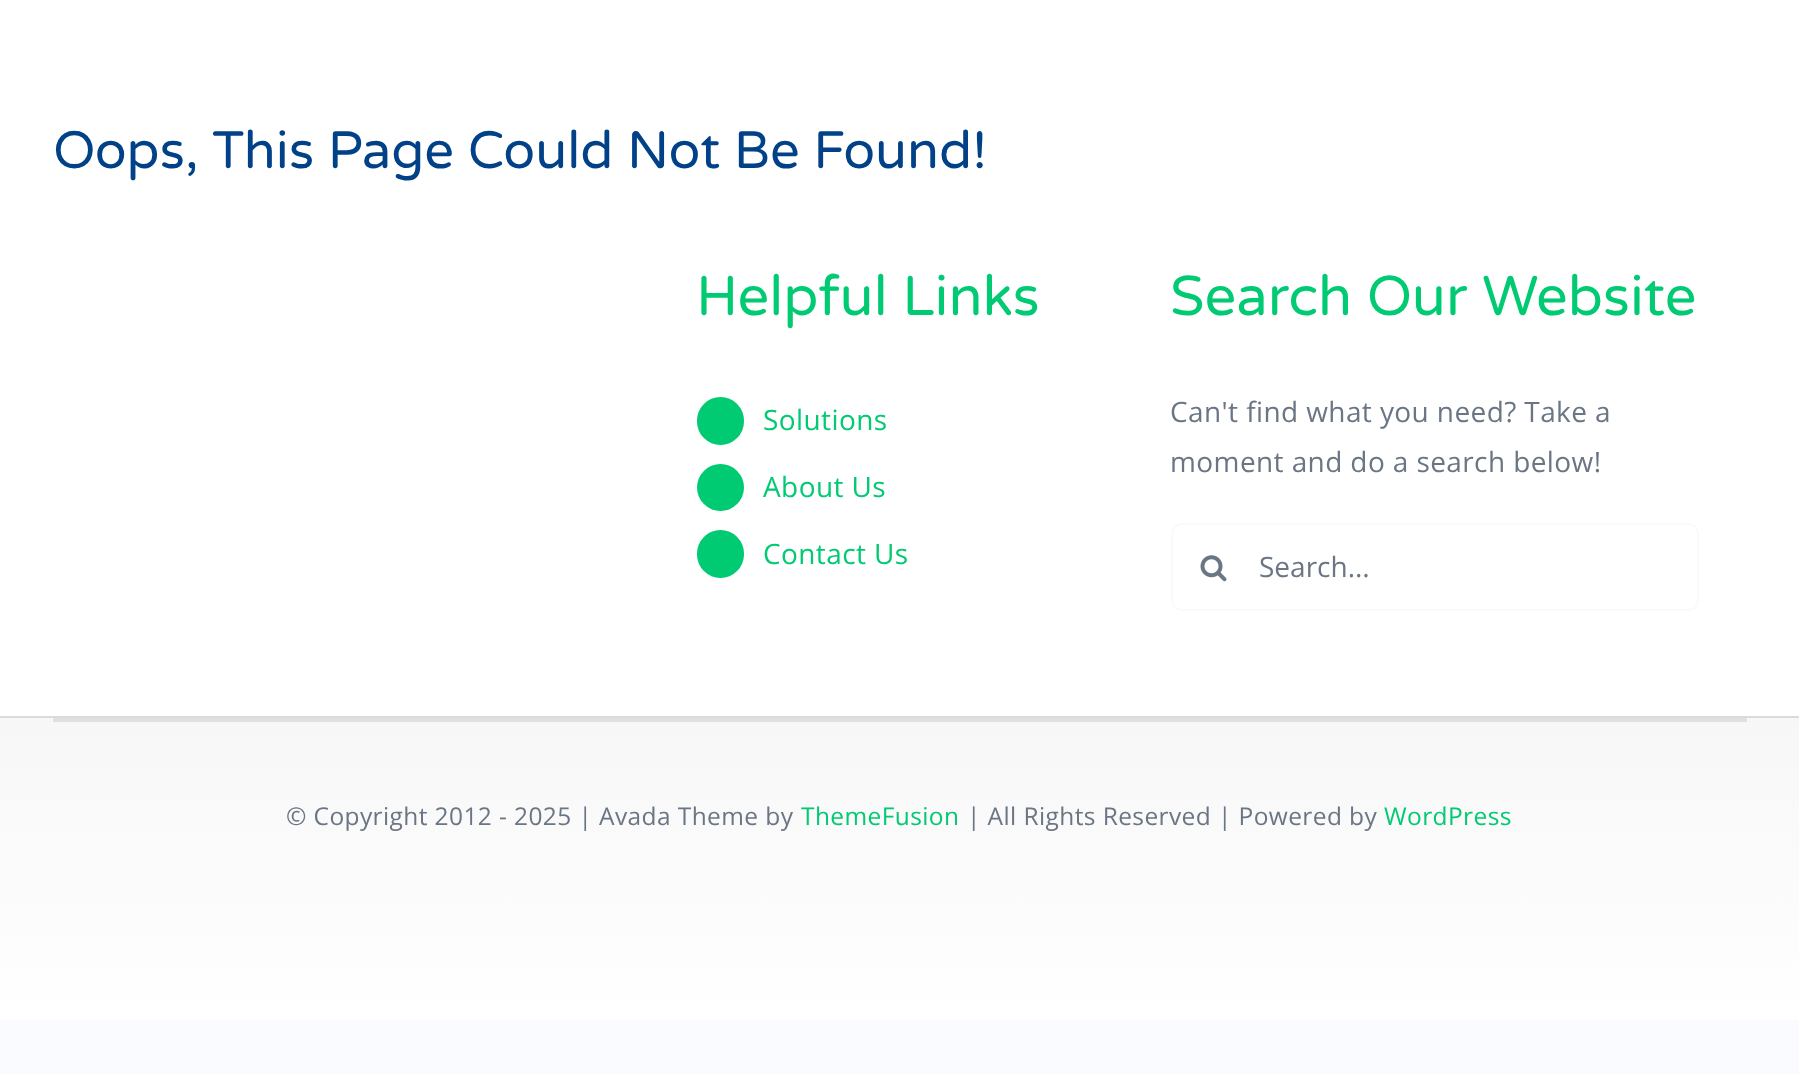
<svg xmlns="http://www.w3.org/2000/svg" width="1799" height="1074">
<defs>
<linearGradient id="g1" gradientUnits="userSpaceOnUse" x1="900" y1="717" x2="900" y2="1020"><stop offset="0" stop-color="#f7f7f7"/><stop offset="1" stop-color="#fff"/></linearGradient>
</defs>
<rect width="100%" height="100%" fill="#f9fbfe"/>
<rect width="1799" height="716" fill="#fff"/>
<text x="53" y="168" style="font-family:Varela Round;font-size:52.5px;fill:#004188">Oops, This Page Could Not Be Found!</text>
<text x="696" y="315" style="font-family:Varela Round;font-size:56px;fill:#00ca72">Helpful Links</text>
<rect x="697" y="397" width="47" height="48" rx="23.5" fill="#00ca72"/>
<text x="763" y="430" style="font-family:Open Sans;font-size:28px;letter-spacing:0.4px;fill:#00ca72">Solutions</text>
<circle cx="720.5" cy="487.5" r="23.5" fill="#00ca72"/>
<text x="763" y="497" style="font-family:Open Sans;font-size:28px;letter-spacing:0.4px;fill:#00ca72">About Us</text>
<rect x="697" y="530" width="47" height="48" rx="23.5" fill="#00ca72"/>
<text x="763" y="564" style="font-family:Open Sans;font-size:28px;letter-spacing:0.4px;fill:#00ca72">Contact Us</text>
<text x="1170" y="315" style="font-family:Varela Round;font-size:56px;fill:#00ca72">Search Our Website</text>
<text x="1170" y="422" style="font-family:Open Sans;font-size:28px;letter-spacing:0.4px;fill:#6a7684">Can't find what you need? Take a</text>
<text x="1170" y="472" style="font-family:Open Sans;font-size:28px;letter-spacing:0.4px;fill:#6a7684">moment and do a search below!</text>
<rect x="1172" y="524" width="526" height="86" rx="10" fill="none" stroke="#f8fbfe" stroke-width="2"/>
<image x="1200" y="555" width="27" height="27" href="media/1.png"/>
<text x="1259" y="577" style="font-family:Open Sans;font-size:28px;fill:#6a7684">Search...</text>
<rect y="718" width="1799" height="302" fill="url(#g1)"/>
<rect y="716" width="1799" height="2" fill="#dbdbdb"/>
<rect x="53" y="718" width="1694" height="4" fill="#e0e0e0"/>
<text x="286" y="825" style="font-family:Open Sans;font-size:24.5px;letter-spacing:0.4px;fill:#6a7684">© Copyright 2012 - 2025 | Avada Theme by</text>
<text x="801" y="825" style="font-family:Open Sans;font-size:24.5px;letter-spacing:0.4px;fill:#00ca72">ThemeFusion</text>
<text x="967" y="825" style="font-family:Open Sans;font-size:24.5px;letter-spacing:0.4px;fill:#6a7684">| All Rights Reserved | Powered by</text>
<text x="1384" y="825" style="font-family:Open Sans;font-size:24.5px;letter-spacing:0.4px;fill:#00ca72">WordPress</text>
</svg>
